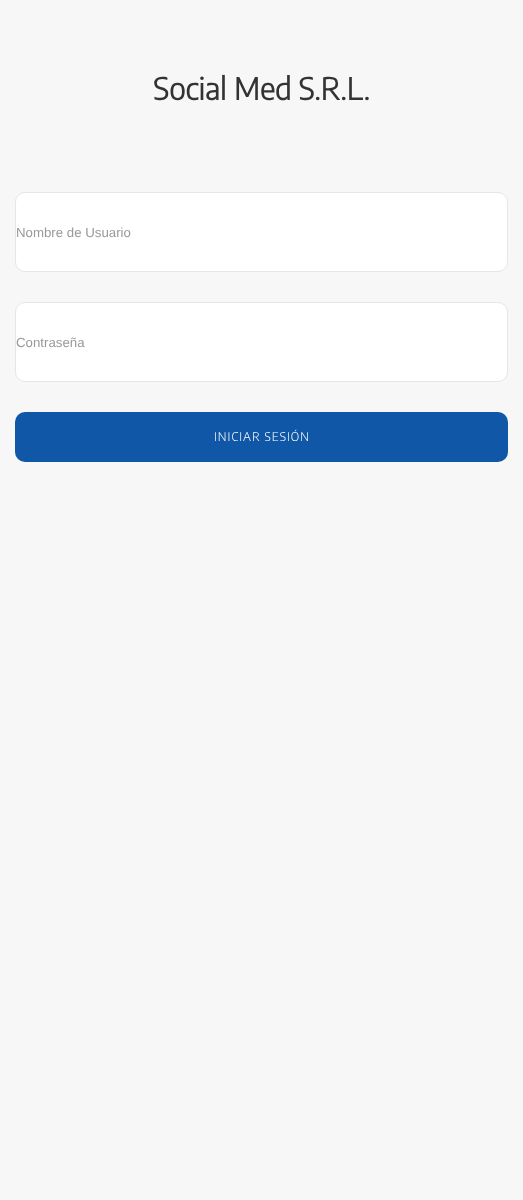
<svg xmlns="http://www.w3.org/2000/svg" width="523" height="1200">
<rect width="100%" height="100%" fill="#f7f7f7"/>
<text x="153" y="100" style="font-family:Encode Sans Condensed;font-size:30px;font-weight:bold;fill:#333">Social Med S.R.L.</text>
<rect x="15.5" y="192.5" width="492" height="79" rx="9.5" fill="#fff" stroke="#e6e6e6"/>
<text x="16" y="237" style="font-family:Liberation Sans;font-size:13.25px;fill:#999">Nombre de Usuario</text>
<rect x="15.5" y="302.5" width="492" height="79" rx="9.5" fill="#fff" stroke="#e6e6e6"/>
<text x="16" y="347" style="font-family:Liberation Sans;font-size:13.25px;fill:#999">Contraseña</text>
<rect x="15" y="412" width="493" height="50" rx="10" fill="#1057a7"/>
<text x="214" y="441" style="font-family:Encode Sans Condensed;font-size:12px;font-weight:300;letter-spacing:1px;fill:#fff">INICIAR SESIÓN</text>
</svg>
